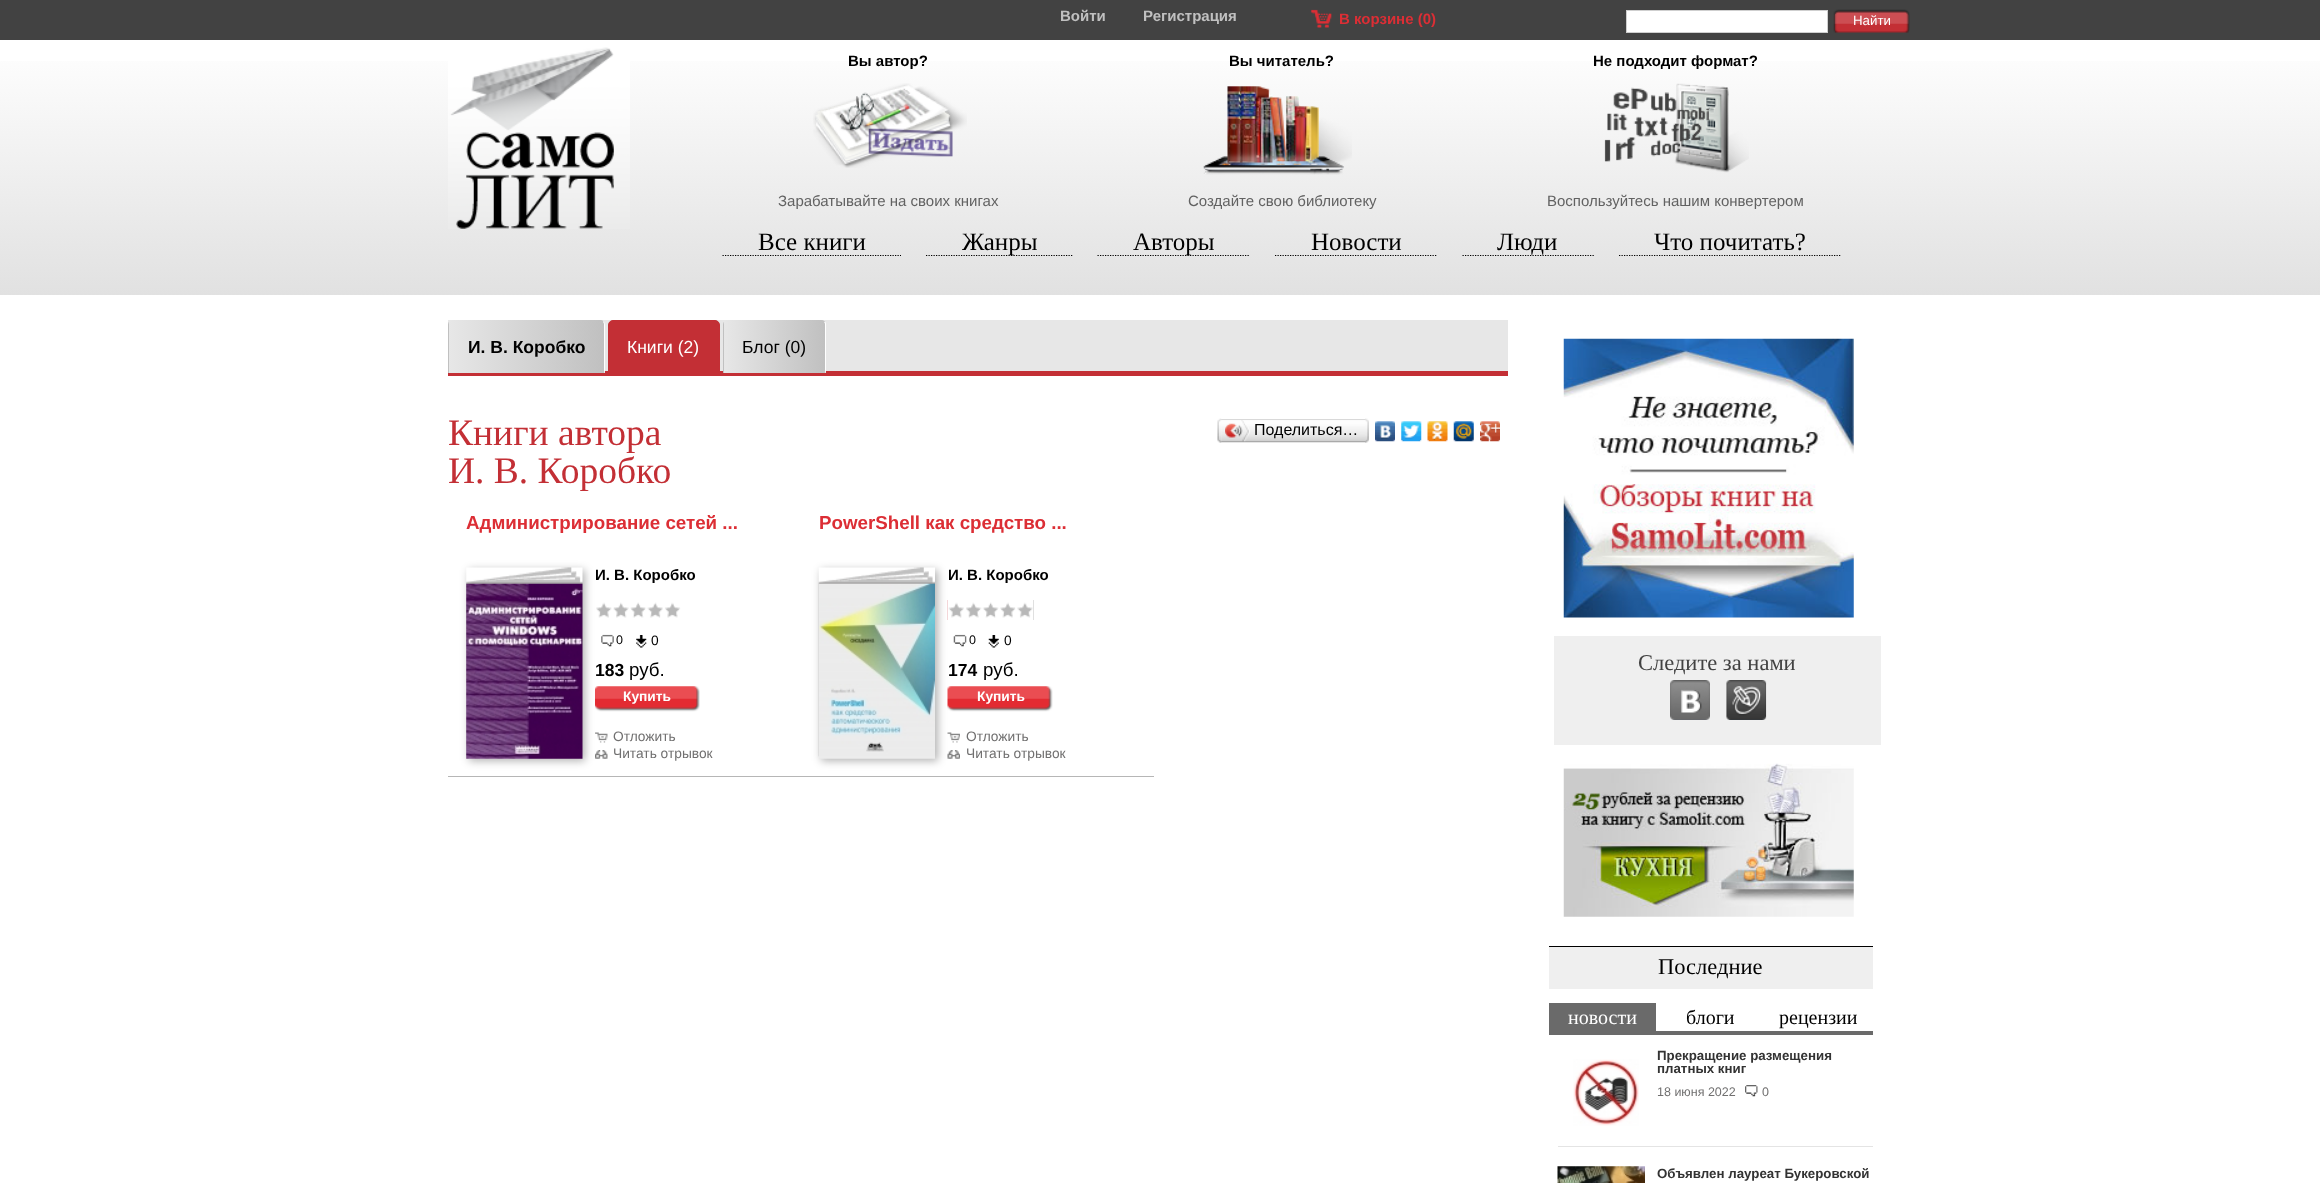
<svg xmlns="http://www.w3.org/2000/svg" width="2320" height="1183">
<defs>
<linearGradient id="g1" gradientUnits="userSpaceOnUse" x1="1160" y1="295" x2="1160" y2="40"><stop offset="0" stop-color="#e1e1e1"/><stop offset="1" stop-color="#fff"/></linearGradient>
<clipPath id="clip1"><path d="M453 320h147c3 0 5 2 5 5v48h-157v-48c0-3 2-5 5-5z"/></clipPath>
<linearGradient id="g2" gradientUnits="userSpaceOnUse" x1="294" y1="346" x2="449" y2="346"><stop offset="0" stop-color="#e7e7e7"/><stop offset="1" stop-color="#c0c0c0"/></linearGradient>
<linearGradient id="g3" gradientUnits="userSpaceOnUse" x1="449" y1="346" x2="604" y2="346"><stop offset="0" stop-color="#e7e7e7"/><stop offset="1" stop-color="#c0c0c0"/></linearGradient>
<linearGradient id="g4" gradientUnits="userSpaceOnUse" x1="604" y1="346" x2="759" y2="346"><stop offset="0" stop-color="#e7e7e7"/><stop offset="1" stop-color="#c0c0c0"/></linearGradient>
<clipPath id="clip2"><path d="M728 320h93c3 0 5 2 5 5v48h-103v-48c0-3 2-5 5-5z"/></clipPath>
<linearGradient id="g5" gradientUnits="userSpaceOnUse" x1="623" y1="346" x2="724" y2="346"><stop offset="0" stop-color="#e7e7e7"/><stop offset="1" stop-color="#c0c0c0"/></linearGradient>
<linearGradient id="g6" gradientUnits="userSpaceOnUse" x1="724" y1="346" x2="825" y2="346"><stop offset="0" stop-color="#e7e7e7"/><stop offset="1" stop-color="#c0c0c0"/></linearGradient>
<linearGradient id="g7" gradientUnits="userSpaceOnUse" x1="825" y1="346" x2="926" y2="346"><stop offset="0" stop-color="#e7e7e7"/><stop offset="1" stop-color="#c0c0c0"/></linearGradient>
</defs>
<rect width="100%" height="100%" fill="#fff"/>
<rect width="2320" height="40" fill="#424242"/>
<text x="1060" y="21" style="font-family:Liberation Sans;font-size:15px;font-weight:bold;fill:#c0c0c0">Войти</text>
<text x="1143" y="21" style="font-family:Liberation Sans;font-size:15px;font-weight:bold;fill:#c0c0c0">Регистрация</text>
<image x="1311" y="9" width="21" height="19" href="media/1.png"/>
<text x="1339" y="24" style="font-family:Liberation Sans;font-size:15px;font-weight:bold;fill:#dc2e35">В корзине (0)</text>
<rect x="1626.5" y="10.5" width="201" height="22" fill="#fff" stroke="#cfcfcf"/>
<image x="1833" y="9" width="77" height="24" href="media/2.png"/>
<text x="1853" y="25" style="font-family:Liberation Sans;font-size:13.3px;fill:#fff">Найти</text>
<rect y="61" width="2320" height="234" fill="url(#g1)"/>
<image x="448" y="47" width="182" height="182" href="media/3.png"/>
<text x="848" y="66" style="font-family:Liberation Sans;font-size:15px;font-weight:bold;fill:#000">Вы автор?</text>
<image x="813" y="83" width="154" height="85" href="media/4.png"/>
<text x="778" y="206" style="font-family:Liberation Sans;font-size:15px;fill:#626262">Зарабатывайте на своих книгах</text>
<text x="1229" y="66" style="font-family:Liberation Sans;font-size:15px;font-weight:bold;fill:#000">Вы читатель?</text>
<image x="1203" y="86" width="149" height="89" href="media/5.png"/>
<text x="1188" y="206" style="font-family:Liberation Sans;font-size:15px;fill:#626262">Создайте свою библиотеку</text>
<text x="1593" y="66" style="font-family:Liberation Sans;font-size:15px;font-weight:bold;fill:#000">Не подходит формат?</text>
<image x="1604" y="83" width="145" height="90" href="media/6.png"/>
<text x="1547" y="206" style="font-family:Liberation Sans;font-size:15px;fill:#626262">Воспользуйтесь нашим конвертером</text>
<path d="M722.5 255.5h178.5" fill="none" stroke="#000" stroke-width="1.2" stroke-dasharray="1.25 1.25"/>
<text x="758" y="250" style="font-family:Liberation Serif;font-size:25px;fill:#000">Все книги</text>
<path d="M926 255.5h146.5" fill="none" stroke="#000" stroke-width="1.2" stroke-dasharray="1.25 1.25"/>
<text x="962" y="250" style="font-family:Liberation Serif;font-size:25px;fill:#000">Жанры</text>
<path d="M1097.5 255.5h152.5" fill="none" stroke="#000" stroke-width="1.2" stroke-dasharray="1.25 1.25"/>
<text x="1133" y="250" style="font-family:Liberation Serif;font-size:25px;fill:#000">Авторы</text>
<path d="M1275 255.5h162.5" fill="none" stroke="#000" stroke-width="1.2" stroke-dasharray="1.25 1.25"/>
<text x="1311" y="250" style="font-family:Liberation Serif;font-size:25px;fill:#000">Новости</text>
<path d="M1462.5 255.5h131.5" fill="none" stroke="#000" stroke-width="1.2" stroke-dasharray="1.25 1.25"/>
<text x="1497" y="250" style="font-family:Liberation Serif;font-size:25px;fill:#000">Люди</text>
<path d="M1619 255.5h222" fill="none" stroke="#000" stroke-width="1.2" stroke-dasharray="1.25 1.25"/>
<text x="1654" y="250" style="font-family:Liberation Serif;font-size:25px;fill:#000">Что почитать?</text>
<rect x="448" y="320" width="1060" height="51" fill="#e7e7e7"/>
<rect x="448" y="371" width="1060" height="5" fill="#c32f35"/>
<g clip-path="url(#clip1)">
<rect x="448" y="320" width="1" height="53" fill="url(#g2)"/>
<rect x="449" y="320" width="155" height="53" fill="url(#g3)"/>
<rect x="604" y="320" width="1" height="53" fill="url(#g4)"/>
</g>
<path d="M605 372v-47c0-1-1-3-1-4l-1 1c1 1 1 2 1 3v46z" fill="#fff"/>
<text x="468" y="353" style="font-family:Liberation Sans;font-size:17.5px;font-weight:bold;fill:#000">И. В. Коробко</text>
<path d="M613 320.5h102c2.5 0 4.5 2 4.5 4.5v47.5h-111v-47.5c0-2.5 2-4.5 4.5-4.5z" fill="#c32f35" stroke="#c32f35"/>
<text x="627" y="353" style="font-family:Liberation Sans;font-size:17.5px;fill:#fff">Книги (2)</text>
<g clip-path="url(#clip2)">
<rect x="723" y="320" width="1" height="53" fill="url(#g5)"/>
<rect x="724" y="320" width="101" height="53" fill="url(#g6)"/>
<rect x="825" y="320" width="1" height="53" fill="url(#g7)"/>
</g>
<path d="M825 322c1 0 1 2 1 3v47l-1-1v-46c0-1 0-2-1-3z" fill="#fff"/>
<text x="742" y="353" style="font-family:Liberation Sans;font-size:17.5px;fill:#000">Блог (0)</text>
<text x="448" y="445" style="font-family:Liberation Serif;font-size:37.5px;fill:#c32f35">Книги автора</text>
<text x="448" y="483" style="font-family:Liberation Serif;font-size:37.5px;fill:#c32f35">И. В. Коробко</text>
<image x="1221" y="419" width="144" height="24" href="media/7.png"/>
<image x="1217" y="418" width="5" height="25" href="media/8.png"/>
<image x="1225" y="420" width="25" height="22" href="media/9.png"/>
<text x="1254" y="435" style="font-family:Liberation Sans;font-size:16px;fill:#000">Поделиться…</text>
<image x="1365" y="418" width="4" height="25" href="media/10.png"/>
<image x="1375" y="421" width="20" height="21" href="media/11.png"/>
<image x="1401" y="421" width="21" height="21" href="media/12.png"/>
<image x="1427" y="421" width="21" height="21" href="media/13.png"/>
<image x="1453" y="421" width="21" height="21" href="media/14.png"/>
<image x="1480" y="421" width="20" height="21" href="media/15.png"/>
<rect x="448" y="776" width="706" height="1" fill="#b6b6b6"/>
<text x="466" y="529" style="font-family:Liberation Sans;font-size:18.75px;font-weight:bold;fill:#dc2e35">Администрирование сетей ...</text>
<image x="595" y="686" width="105" height="26" href="media/21.png"/>
<image x="595" y="732" width="13" height="11" href="media/22.png"/>
<image x="595" y="750" width="13" height="9" href="media/23.png"/>
<rect x="469" y="570" width="116" height="191" fill="#0000004d" filter="blur(4px)"/>
<image x="466" y="567" width="117" height="190" href="media/16.png"/>
<image x="466" y="583" width="117" height="176" href="media/17.png"/>
<text x="595" y="580" style="font-family:Liberation Sans;font-size:15px;font-weight:bold;fill:#000">И. В. Коробко</text>
<rect x="596" y="602" width="85" height="16" fill="#b8b8b8"/>
<image x="595" y="600" width="86" height="20" href="media/18.png"/>
<image x="601" y="634" width="13" height="13" href="media/19.png"/>
<text x="616" y="644" style="font-family:Liberation Sans;font-size:12.5px;fill:#000">0</text>
<image x="636" y="635" width="11" height="13" href="media/20.png"/>
<text x="651" y="645" style="font-family:Liberation Sans;font-size:13.75px;letter-spacing:-1px;fill:#000">0</text>
<text x="595" y="676" style="font-family:Liberation Sans;font-size:17.5px;font-weight:bold;fill:#000">183</text>
<text x="629" y="676" style="font-family:Liberation Sans;font-size:18.75px;fill:#000">руб.</text>
<text x="623" y="701" style="font-family:Liberation Sans;font-size:13.75px;font-weight:bold;fill:#fff">Купить</text>
<text x="613" y="741" style="font-family:Liberation Sans;font-size:13.75px;fill:#717070">Отложить</text>
<text x="613" y="758" style="font-family:Liberation Sans;font-size:13.75px;fill:#717070">Читать отрывок</text>
<text x="819" y="529" style="font-family:Liberation Sans;font-size:18.75px;font-weight:bold;fill:#dc2e35">PowerShell как средство ...</text>
<image x="947" y="686" width="106" height="26" href="media/29.png"/>
<image x="947" y="732" width="13" height="11" href="media/30.png"/>
<image x="947" y="750" width="13" height="9" href="media/31.png"/>
<rect x="821" y="570" width="117" height="191" fill="#0000004d" filter="blur(4px)"/>
<image x="818" y="567" width="117" height="190" href="media/24.png"/>
<image x="819" y="583" width="116" height="176" href="media/25.png"/>
<text x="948" y="580" style="font-family:Liberation Sans;font-size:15px;font-weight:bold;fill:#000">И. В. Коробко</text>
<rect x="948" y="600" width="86" height="20" fill="#b8b8b8"/>
<rect x="947" y="600" width="1" height="20" fill="#f0cacc"/>
<image x="947" y="600" width="87" height="20" href="media/26.png"/>
<image x="953" y="634" width="14" height="13" href="media/27.png"/>
<text x="969" y="644" style="font-family:Liberation Sans;font-size:12.5px;fill:#000">0</text>
<image x="988" y="635" width="11" height="13" href="media/28.png"/>
<text x="1004" y="645" style="font-family:Liberation Sans;font-size:13.75px;letter-spacing:-1px;fill:#000">0</text>
<text x="948" y="676" style="font-family:Liberation Sans;font-size:17.5px;font-weight:bold;fill:#000">174</text>
<text x="983" y="676" style="font-family:Liberation Sans;font-size:18.75px;fill:#000">руб.</text>
<text x="977" y="701" style="font-family:Liberation Sans;font-size:13.75px;font-weight:bold;fill:#fff">Купить</text>
<text x="966" y="741" style="font-family:Liberation Sans;font-size:13.75px;fill:#717070">Отложить</text>
<text x="966" y="758" style="font-family:Liberation Sans;font-size:13.75px;fill:#717070">Читать отрывок</text>
<image x="1563" y="338" width="291" height="280" href="media/32.png"/>
<rect x="1554" y="636" width="327" height="109" fill="#efefef"/>
<text x="1638" y="670" style="font-family:Liberation Serif;font-size:22.5px;fill:#424242">Следите за нами</text>
<image x="1670" y="680" width="40" height="40" href="media/33.png"/>
<image x="1726" y="680" width="41" height="40" href="media/34.png"/>
<image x="1563" y="763" width="291" height="154" href="media/35.png"/>
<rect x="1549" y="947" width="324" height="42" fill="#efefef"/>
<rect x="1549" y="946" width="324" height="1" fill="#000"/>
<text x="1658" y="974" style="font-family:Liberation Serif;font-size:22.5px;fill:#000">Последние</text>
<rect x="1549" y="1031" width="324" height="4" fill="#6a6a6a"/>
<rect x="1549" y="1003" width="107" height="28" fill="#6a6a6a"/>
<text x="1568" y="1024" style="font-family:Liberation Serif;font-size:20px;fill:#fff">новости</text>
<text x="1686" y="1024" style="font-family:Liberation Serif;font-size:20px;fill:#000">блоги</text>
<text x="1779" y="1024" style="font-family:Liberation Serif;font-size:20px;fill:#000">рецензии</text>
<rect x="1558" y="1146" width="315" height="1" fill="#e4e4e4"/>
<image x="1573" y="1059" width="66" height="67" href="media/36.png"/>
<text x="1657" y="1060" style="font-family:Liberation Sans;font-size:13.3px;font-weight:bold;fill:#333">Прекращение размещения</text>
<text x="1657" y="1073" style="font-family:Liberation Sans;font-size:13.3px;font-weight:bold;fill:#333">платных книг</text>
<text x="1657" y="1096" style="font-family:Liberation Sans;font-size:12.5px;fill:#717070">18 июня 2022</text>
<image x="1745" y="1085" width="13" height="12" href="media/37.png"/>
<text x="1762" y="1096" style="font-family:Liberation Sans;font-size:12.5px;fill:#717070">0</text>
<image x="1557" y="1166" width="88" height="17" href="media/38.png"/>
<text x="1657" y="1178" style="font-family:Liberation Sans;font-size:13.3px;font-weight:bold;fill:#333">Объявлен лауреат Букеровской</text>
</svg>
